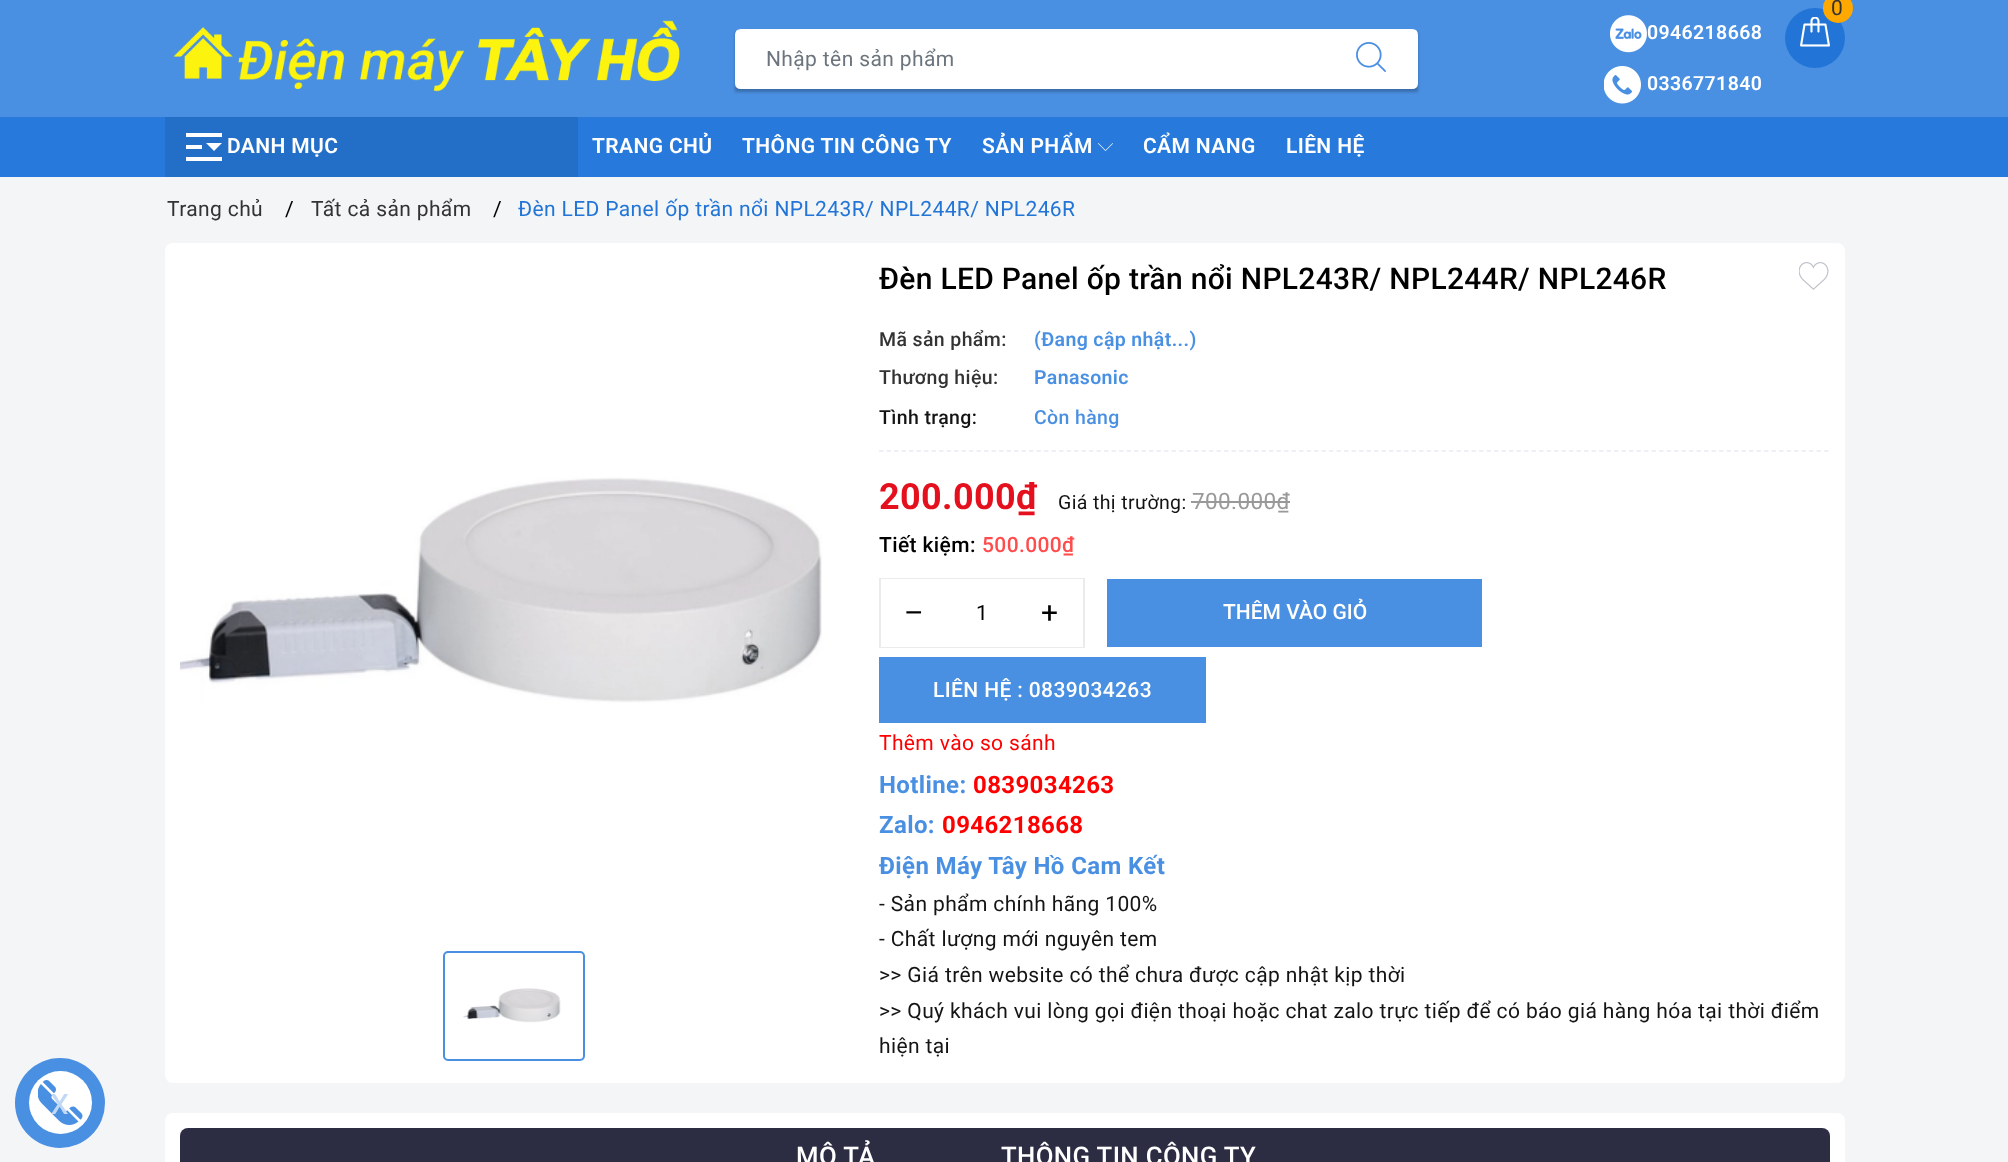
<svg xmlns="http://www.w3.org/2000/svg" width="2008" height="1162">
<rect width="100%" height="100%" fill="#f3f5f7"/>
<rect width="2008" height="117" fill="#4a90e2"/>
<image x="173" y="20" width="507" height="72" href="media/1.png"/>
<rect x="735" y="32" width="683" height="60" fill="#0000003d" filter="blur(1.5px)"/>
<path d="M741 30h584v58h-584c-3 0-5-2-5-5v-48c0-3 2-5 5-5z" fill="#fff" stroke="#fff" stroke-width="2"/>
<text x="766" y="66" style="font-family:Roboto;font-size:21px;letter-spacing:0.38px;fill:#6c757d">Nhập tên sản phẩm</text>
<path d="M1326 30h86c3 0 5 2 5 5v48c0 3-2 5-5 5h-86z" fill="#fff" stroke="#fff" stroke-width="2"/>
<image x="1356" y="42" width="30" height="30" href="media/2.png"/>
<circle cx="1815" cy="38" r="30" fill="#2275d7"/>
<image x="1800" y="17" width="30" height="30" href="media/3.png"/>
<circle cx="1838" cy="8" r="15" fill="#ffa800"/>
<text x="1831" y="15" style="font-family:Roboto;font-size:21px;letter-spacing:0.38px;fill:#333">0</text>
<image x="1610" y="15" width="37" height="38" href="media/4.png"/>
<text x="1647" y="39" style="font-family:Roboto;font-size:19.5px;font-weight:600;letter-spacing:0.38px;fill:#fff">0946218668</text>
<image x="1604" y="66" width="37" height="38" href="media/5.png"/>
<text x="1647" y="90" style="font-family:Roboto;font-size:19.5px;font-weight:600;letter-spacing:0.38px;fill:#fff">0336771840</text>
<rect y="117" width="2008" height="60" fill="#277adc"/>
<rect x="165" y="117" width="413" height="60" fill="#236ec6"/>
<image x="186" y="133" width="36" height="28" href="media/6.png"/>
<text x="227" y="153" style="font-family:Roboto;font-size:21px;font-weight:600;letter-spacing:0.38px;fill:#fff">DANH MỤC</text>
<text x="592" y="153" style="font-family:Roboto;font-size:21px;font-weight:600;letter-spacing:0.38px;fill:#fff">TRANG CHỦ</text>
<text x="742" y="153" style="font-family:Roboto;font-size:21px;font-weight:600;letter-spacing:0.38px;fill:#fff">THÔNG TIN CÔNG TY</text>
<text x="982" y="153" style="font-family:Roboto;font-size:21px;font-weight:600;letter-spacing:0.38px;fill:#fff">SẢN PHẨM</text>
<image x="1098" y="143" width="15" height="8" href="media/7.png"/>
<text x="1143" y="153" style="font-family:Roboto;font-size:21px;font-weight:600;letter-spacing:0.38px;fill:#fff">CẨM NANG</text>
<text x="1286" y="153" style="font-family:Roboto;font-size:21px;font-weight:600;letter-spacing:0.38px;fill:#fff">LIÊN HỆ</text>
<text x="167" y="216" style="font-family:Roboto;font-size:21px;letter-spacing:0.38px;fill:#333">Trang chủ</text>
<text x="285" y="216" style="font-family:Roboto;font-size:21px;letter-spacing:0.38px;fill:#000">/</text>
<text x="311" y="216" style="font-family:Roboto;font-size:21px;letter-spacing:0.38px;fill:#333">Tất cả sản phẩm</text>
<text x="493" y="216" style="font-family:Roboto;font-size:21px;letter-spacing:0.38px;fill:#000">/</text>
<text x="518" y="216" style="font-family:Roboto;font-size:21px;letter-spacing:0.38px;fill:#2275d7">Đèn LED Panel ốp trần nổi NPL243R/ NPL244R/ NPL246R</text>
<circle cx="60" cy="1103" r="45" fill="#4a90e2"/>
<circle cx="60.5" cy="1102.5" r="31.5" fill="#fff"/>
<image x="38" y="1080" width="45" height="45" href="media/8.png"/>
<text x="69" y="1094" transform="rotate(180 69 1094)" style="font-family:Roboto;font-size:38px;letter-spacing:0.38px;fill:#c1d9f5">x</text>
<rect x="165" y="243" width="1680" height="840" rx="8" fill="#fff"/>
<image x="180" y="477" width="642" height="226" href="media/9.png"/>
<rect x="444" y="952" width="140" height="108" rx="4" fill="none" stroke="#4a90e2" stroke-width="2"/>
<image x="463" y="988" width="98" height="35" href="media/10.png"/>
<text x="879" y="289" style="font-family:Roboto;font-size:30px;font-weight:500;letter-spacing:0.3px;fill:#000">Đèn LED Panel ốp trần nổi NPL243R/ NPL244R/ NPL246R</text>
<image x="1799" y="262" width="30" height="28" href="media/11.png"/>
<text x="879" y="346" style="font-family:Roboto;font-size:19.5px;font-weight:500;letter-spacing:0.38px;fill:#333">Mã sản phẩm:</text>
<text x="1034" y="346" style="font-family:Roboto;font-size:19.5px;font-weight:600;letter-spacing:0.38px;fill:#4a90e2">(Đang cập nhật...)</text>
<text x="879" y="384" style="font-family:Roboto;font-size:19.5px;font-weight:500;letter-spacing:0.38px;fill:#333">Thương hiệu:</text>
<text x="1034" y="384" style="font-family:Roboto;font-size:19.5px;font-weight:600;letter-spacing:0.38px;fill:#4a90e2">Panasonic</text>
<path d="M879 451h949.5" fill="none" stroke="#eaebf3" stroke-width="1.5" stroke-dasharray="4.5 3"/>
<text x="879" y="424" style="font-family:Roboto;font-size:19.5px;font-weight:500;letter-spacing:0.38px;fill:#141414">Tình trạng:</text>
<text x="1034" y="424" style="font-family:Roboto;font-size:19.5px;font-weight:500;letter-spacing:0.38px;fill:#4a90e2">Còn hàng</text>
<text x="879" y="509" style="font-family:Roboto;font-size:36px;font-weight:bold;letter-spacing:0.38px;fill:#e5101d">200.000₫</text>
<text x="1058" y="509" style="font-family:Roboto;font-size:19.5px;letter-spacing:0.38px;fill:#141414">Giá thị trường:</text>
<text x="1192" y="509" style="font-family:Roboto;font-size:22.5px;letter-spacing:0.38px;fill:#999">700.000₫</text>
<rect x="1191" y="501" width="99" height="2" fill="#999"/>
<text x="879" y="552" style="font-family:Roboto;font-size:21px;font-weight:500;letter-spacing:0.38px;fill:#000">Tiết kiệm:</text>
<text x="982" y="552" style="font-family:Roboto;font-size:21px;font-weight:500;letter-spacing:0.38px;fill:#ff4c4c">500.000₫</text>
<rect x="880" y="579" width="204" height="68" fill="none" stroke="#ebebeb" stroke-width="2"/>
<rect x="881" y="579" width="202" height="68" fill="#fff"/>
<text x="904" y="623" style="font-family:Roboto;font-size:30px;letter-spacing:0.38px;fill:#000">–</text>
<text x="976" y="620" style="font-family:Roboto;font-size:21px;letter-spacing:0.38px;fill:#000">1</text>
<text x="1041" y="623" style="font-family:Roboto;font-size:30px;letter-spacing:0.38px;fill:#000">+</text>
<rect x="1107" y="579" width="375" height="68" fill="#4a90e2"/>
<text x="1223" y="619" style="font-family:Roboto;font-size:21px;font-weight:500;fill:#fff">THÊM VÀO GIỎ</text>
<rect x="879" y="657" width="327" height="66" fill="#4a90e2"/>
<text x="933" y="697" style="font-family:Roboto;font-size:21px;font-weight:500;letter-spacing:0.38px;fill:#fff">LIÊN HỆ : 0839034263</text>
<text x="879" y="750" style="font-family:Roboto;font-size:21px;letter-spacing:0.38px;fill:#f00">Thêm vào so sánh</text>
<text x="879" y="793" style="font-family:Roboto;font-size:24px;font-weight:bold;letter-spacing:0.38px;fill:#4a90e2">Hotline:</text>
<text x="973" y="793" style="font-family:Roboto;font-size:24px;font-weight:bold;letter-spacing:0.38px;fill:#f00">0839034263</text>
<text x="879" y="833" style="font-family:Roboto;font-size:24px;font-weight:bold;letter-spacing:0.38px;fill:#4a90e2">Zalo:</text>
<text x="942" y="833" style="font-family:Roboto;font-size:24px;font-weight:bold;letter-spacing:0.38px;fill:#f00">0946218668</text>
<text x="879" y="874" style="font-family:Roboto;font-size:24px;font-weight:bold;letter-spacing:0.38px;fill:#4a90e2">Điện Máy Tây Hồ Cam Kết</text>
<text x="879" y="911" style="font-family:Roboto;font-size:21px;letter-spacing:0.38px;fill:#141414">- Sản phẩm chính hãng 100%</text>
<text x="879" y="946" style="font-family:Roboto;font-size:21px;letter-spacing:0.38px;fill:#141414">- Chất lượng mới nguyên tem</text>
<text x="879" y="982" style="font-family:Roboto;font-size:21px;letter-spacing:0.38px;fill:#141414">&gt;&gt; Giá trên website có thể chưa được cập nhật kịp thời</text>
<text x="879" y="1018" style="font-family:Roboto;font-size:21px;letter-spacing:0.38px;fill:#141414">&gt;&gt; Quý khách vui lòng gọi điện thoại hoặc chat zalo trực tiếp để có báo giá hàng hóa tại thời điểm</text>
<text x="879" y="1053" style="font-family:Roboto;font-size:21px;letter-spacing:0.38px;fill:#141414">hiện tại</text>
<rect x="165" y="1113" width="1680" height="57" rx="8" fill="#fff"/>
<rect x="180" y="1128" width="1650" height="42" rx="8" fill="#2c2c43"/>
<text x="796" y="1165" style="font-family:Roboto;font-size:25.75px;font-weight:500;letter-spacing:0.38px;fill:#fff">MÔ TẢ</text>
<text x="1001" y="1165" style="font-family:Roboto;font-size:25.75px;font-weight:500;letter-spacing:0.38px;fill:#fff">THÔNG TIN CÔNG TY</text>
</svg>
